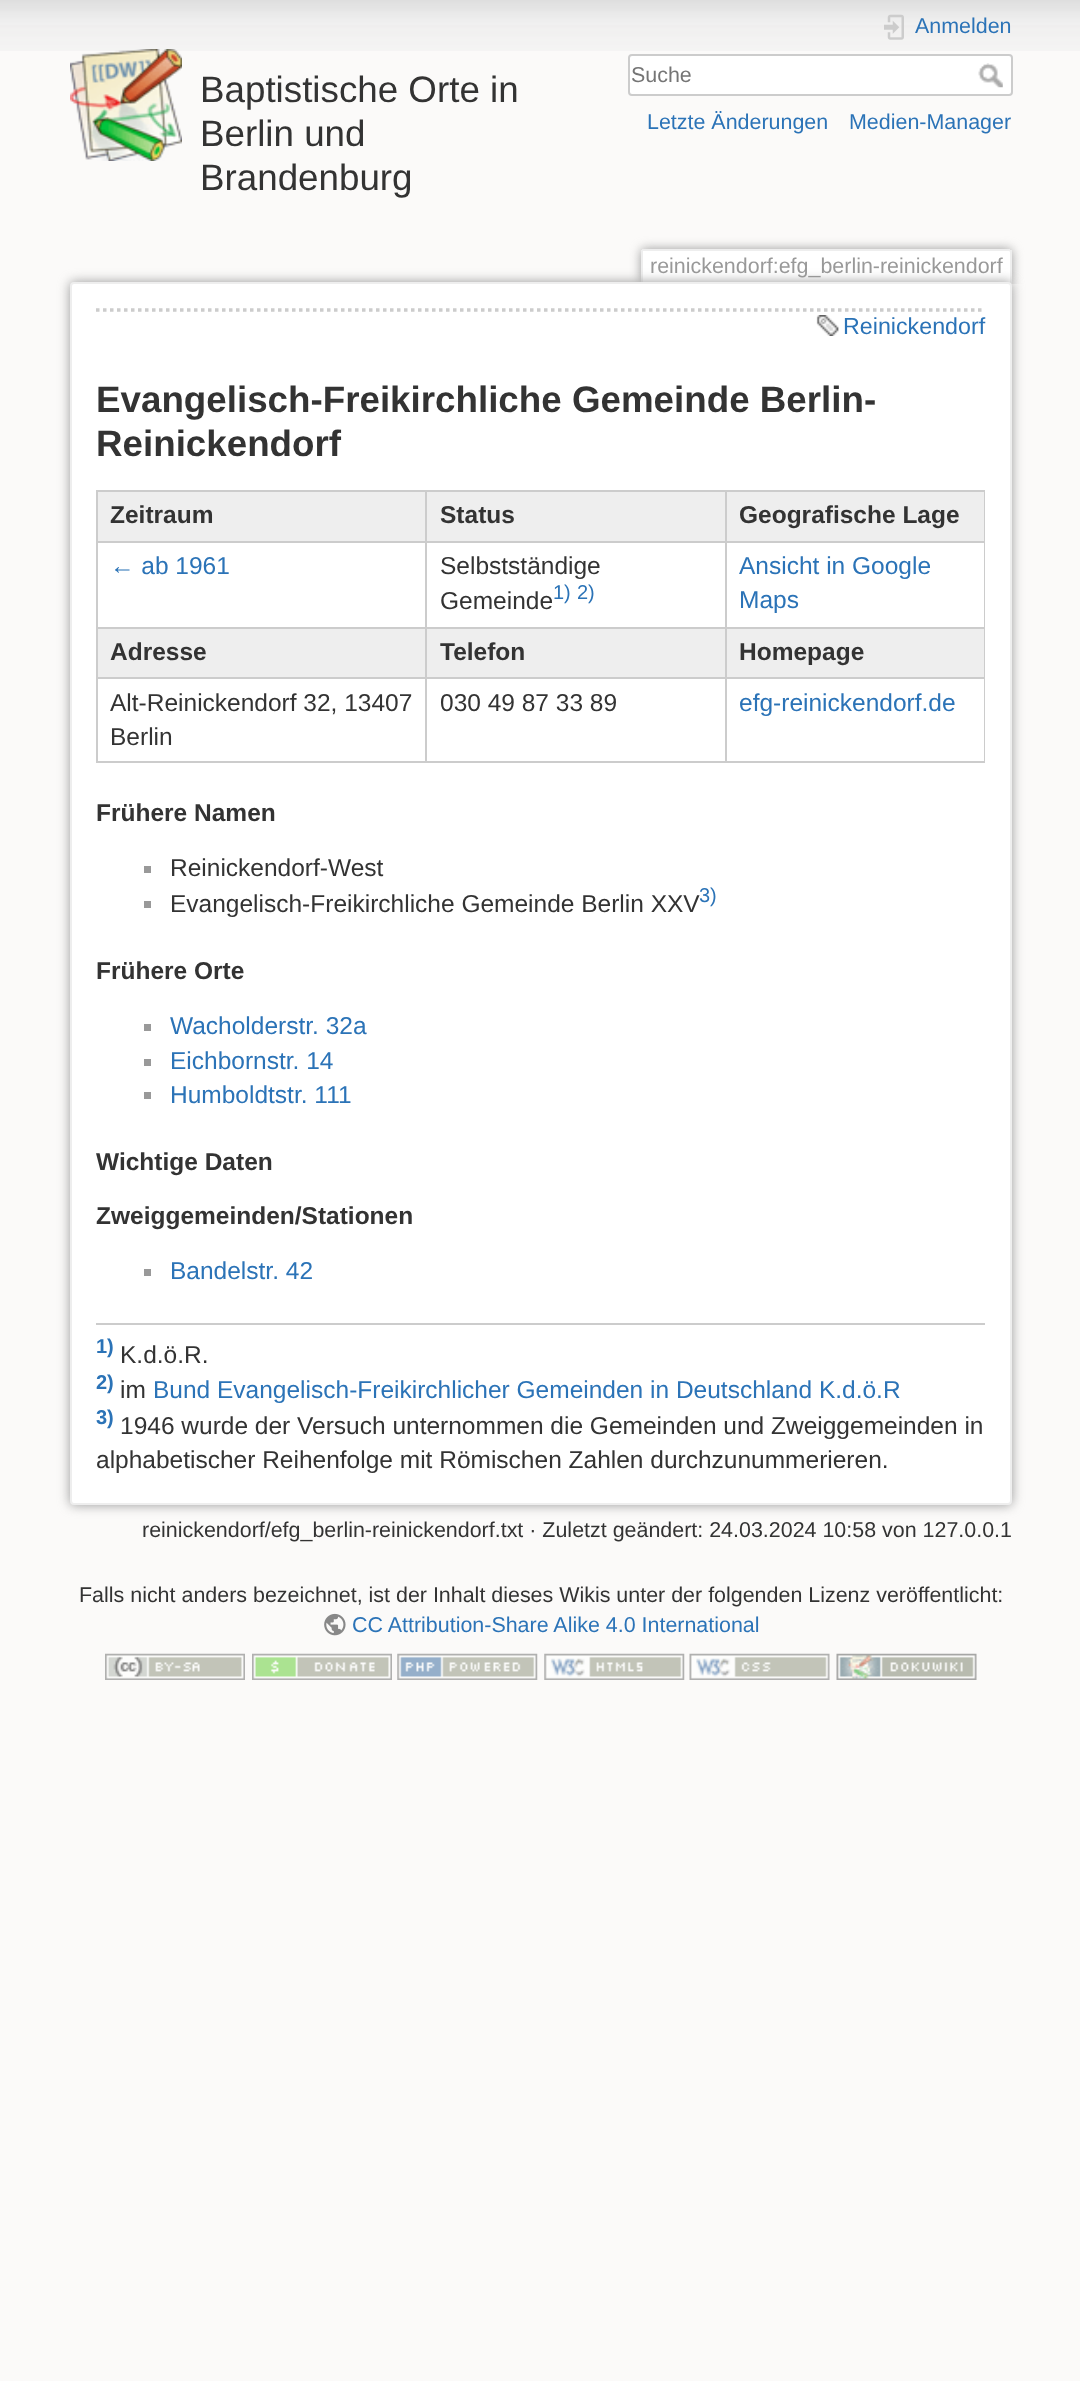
<svg xmlns="http://www.w3.org/2000/svg" width="1080" height="2381">
<defs>
<clipPath id="clip1"><rect x="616" y="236" width="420" height="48"/></clipPath>
</defs>
<rect width="100%" height="100%" fill="#fbfaf9"/>
<image x="0" y="0" width="1080" height="51" href="media/1.png"/>
<image x="70" y="49" width="112" height="112" href="media/2.png"/>
<text x="200" y="102" style="font-family:Liberation Sans;font-size:36.75px;fill:#333">Baptistische Orte in</text>
<text x="200" y="146" style="font-family:Liberation Sans;font-size:36.75px;fill:#333">Berlin und</text>
<text x="200" y="190" style="font-family:Liberation Sans;font-size:36.75px;fill:#333">Brandenburg</text>
<image x="884" y="14" width="20" height="26" href="media/3.png"/>
<text x="915" y="33" style="font-family:Liberation Sans;font-size:21.45px;fill:#2b73b7">Anmelden</text>
<rect x="629" y="55" width="383" height="40" rx="3" fill="#fff" stroke="#ccc" stroke-width="2"/>
<text x="631" y="82" style="font-family:Liberation Sans;font-size:21.45px;fill:#757575">Suche</text>
<image x="978" y="63" width="25" height="25" href="media/4.png"/>
<text x="647" y="129" style="font-family:Liberation Sans;font-size:21.45px;fill:#2b73b7">Letzte Änderungen</text>
<text x="849" y="129" style="font-family:Liberation Sans;font-size:21.45px;fill:#2b73b7">Medien-Manager</text>
<g clip-path="url(#clip1)">
<rect x="641" y="249" width="371" height="35" rx="4" fill="#999" filter="blur(5.5px)"/>
</g>
<path d="M644 250h364c1 0 2 1 2 2v32h-368v-32c0-1 1-2 2-2z" fill="#fff"/>
<rect x="642" y="249" width="368" height="2" fill="#eee"/>
<rect x="1010" y="250" width="2" height="34" fill="#eee"/>
<rect x="641" y="250" width="2" height="34" fill="#eee"/>
<text x="650" y="273" style="font-family:Liberation Sans;font-size:21.45px;fill:#999">reinickendorf:efg_berlin-reinickendorf</text>
<rect x="70" y="282" width="942" height="1223" rx="4" fill="#999" filter="blur(6px)"/>
<rect x="71" y="283" width="940" height="1221" rx="3" fill="#fff" stroke="#eee" stroke-width="2"/>
<path d="M96 310h889" fill="none" stroke="#ccc" stroke-width="3.5" stroke-dasharray="3.5 3.5"/>
<image x="816" y="315" width="23" height="21" href="media/5.png"/>
<text x="843" y="334" style="font-family:Liberation Sans;font-size:23.25px;fill:#2b73b7">Reinickendorf</text>
<text x="96" y="412" style="font-family:Liberation Sans;font-size:36.75px;font-weight:bold;fill:#333">Evangelisch-Freikirchliche Gemeinde Berlin-</text>
<text x="96" y="456" style="font-family:Liberation Sans;font-size:36.75px;font-weight:bold;fill:#333">Reinickendorf</text>
<rect x="96" y="490" width="889" height="2" fill="#ccc"/>
<rect x="984" y="490" width="1" height="273" fill="#ccc"/>
<rect x="96" y="761" width="889" height="2" fill="#ccc"/>
<rect x="96" y="490" width="2" height="273" fill="#ccc"/>
<rect x="98" y="492" width="327" height="49" fill="#eee"/>
<text x="110" y="523" style="font-family:Liberation Sans;font-size:24.5px;font-weight:bold;fill:#333">Zeitraum</text>
<rect x="427" y="492" width="298" height="49" fill="#eee"/>
<rect x="725" y="541" width="260" height="2" fill="#ccc"/>
<rect x="725" y="627" width="260" height="2" fill="#ccc"/>
<rect x="725" y="677" width="260" height="2" fill="#ccc"/>
<rect x="725" y="677" width="2" height="86" fill="#ccc"/>
<rect x="425" y="677" width="301" height="2" fill="#ccc"/>
<rect x="725" y="627" width="2" height="52" fill="#ccc"/>
<rect x="425" y="627" width="301" height="2" fill="#ccc"/>
<rect x="725" y="541" width="2" height="87" fill="#ccc"/>
<rect x="425" y="541" width="301" height="2" fill="#ccc"/>
<rect x="425" y="677" width="2" height="86" fill="#ccc"/>
<rect x="96" y="677" width="331" height="2" fill="#ccc"/>
<rect x="425" y="627" width="2" height="52" fill="#ccc"/>
<rect x="96" y="627" width="331" height="2" fill="#ccc"/>
<rect x="425" y="541" width="2" height="87" fill="#ccc"/>
<rect x="96" y="541" width="331" height="2" fill="#ccc"/>
<rect x="425" y="490" width="2" height="53" fill="#ccc"/>
<text x="440" y="523" style="font-family:Liberation Sans;font-size:24.5px;font-weight:bold;fill:#333">Status</text>
<rect x="727" y="492" width="257" height="49" fill="#eee"/>
<rect x="725" y="490" width="2" height="53" fill="#ccc"/>
<text x="739" y="523" style="font-family:Liberation Sans;font-size:24.5px;font-weight:bold;fill:#333">Geografische Lage</text>
<text x="110" y="574" style="font-family:Liberation Sans;font-size:24.5px;fill:#2b73b7">← ab 1961</text>
<text x="440" y="574" style="font-family:Liberation Sans;font-size:24.5px;fill:#333">Selbstständige</text>
<text x="440" y="609" style="font-family:Liberation Sans;font-size:24.5px;fill:#333">Gemeinde</text>
<text x="553" y="599" style="font-family:Liberation Sans;font-size:20px;fill:#2b73b7">1)</text>
<text x="577" y="599" style="font-family:Liberation Sans;font-size:20px;fill:#2b73b7">2)</text>
<text x="739" y="574" style="font-family:Liberation Sans;font-size:24.5px;fill:#2b73b7">Ansicht in Google</text>
<text x="739" y="608" style="font-family:Liberation Sans;font-size:24.5px;fill:#2b73b7">Maps</text>
<rect x="98" y="629" width="327" height="48" fill="#eee"/>
<text x="110" y="660" style="font-family:Liberation Sans;font-size:24.5px;font-weight:bold;fill:#333">Adresse</text>
<rect x="427" y="629" width="298" height="48" fill="#eee"/>
<text x="440" y="660" style="font-family:Liberation Sans;font-size:24.5px;font-weight:bold;fill:#333">Telefon</text>
<rect x="727" y="629" width="257" height="48" fill="#eee"/>
<text x="739" y="660" style="font-family:Liberation Sans;font-size:24.5px;font-weight:bold;fill:#333">Homepage</text>
<text x="110" y="711" style="font-family:Liberation Sans;font-size:24.5px;fill:#333">Alt-Reinickendorf 32, 13407</text>
<text x="110" y="745" style="font-family:Liberation Sans;font-size:24.5px;fill:#333">Berlin</text>
<text x="440" y="711" style="font-family:Liberation Sans;font-size:24.5px;fill:#333">030 49 87 33 89</text>
<text x="739" y="711" style="font-family:Liberation Sans;font-size:24.5px;fill:#2b73b7">efg-reinickendorf.de</text>
<text x="96" y="821" style="font-family:Liberation Sans;font-size:24.5px;font-weight:bold;fill:#333">Frühere Namen</text>
<rect x="144" y="866" width="7" height="7" fill="#999"/>
<text x="170" y="876" style="font-family:Liberation Sans;font-size:24.5px;fill:#333">Reinickendorf-West</text>
<rect x="144" y="901" width="7" height="7" fill="#999"/>
<text x="170" y="912" style="font-family:Liberation Sans;font-size:24.5px;fill:#333">Evangelisch-Freikirchliche Gemeinde Berlin XXV</text>
<text x="699" y="902" style="font-family:Liberation Sans;font-size:20px;fill:#2b73b7">3)</text>
<text x="96" y="979" style="font-family:Liberation Sans;font-size:24.5px;font-weight:bold;fill:#333">Frühere Orte</text>
<rect x="144" y="1024" width="7" height="7" fill="#999"/>
<text x="170" y="1034" style="font-family:Liberation Sans;font-size:24.5px;fill:#2b73b7">Wacholderstr. 32a</text>
<rect x="144" y="1059" width="7" height="7" fill="#999"/>
<text x="170" y="1069" style="font-family:Liberation Sans;font-size:24.5px;fill:#2b73b7">Eichbornstr. 14</text>
<rect x="144" y="1092" width="7" height="7" fill="#999"/>
<text x="170" y="1103" style="font-family:Liberation Sans;font-size:24.5px;fill:#2b73b7">Humboldtstr. 111</text>
<text x="96" y="1170" style="font-family:Liberation Sans;font-size:24.5px;font-weight:bold;fill:#333">Wichtige Daten</text>
<text x="96" y="1224" style="font-family:Liberation Sans;font-size:24.5px;font-weight:bold;fill:#333">Zweiggemeinden/Stationen</text>
<rect x="144" y="1269" width="7" height="7" fill="#999"/>
<text x="170" y="1279" style="font-family:Liberation Sans;font-size:24.5px;fill:#2b73b7">Bandelstr. 42</text>
<rect x="96" y="1323" width="889" height="2" fill="#ccc"/>
<text x="96" y="1353" style="font-family:Liberation Sans;font-size:20px;font-weight:bold;fill:#2b73b7">1)</text>
<text x="120" y="1363" style="font-family:Liberation Sans;font-size:24.5px;fill:#333">K.d.ö.R.</text>
<text x="96" y="1389" style="font-family:Liberation Sans;font-size:20px;font-weight:bold;fill:#2b73b7">2)</text>
<text x="120" y="1398" style="font-family:Liberation Sans;font-size:24.5px;fill:#333">im</text>
<text x="153" y="1398" style="font-family:Liberation Sans;font-size:24.5px;fill:#2b73b7">Bund Evangelisch-Freikirchlicher Gemeinden in Deutschland K.d.ö.R</text>
<text x="96" y="1424" style="font-family:Liberation Sans;font-size:20px;font-weight:bold;fill:#2b73b7">3)</text>
<text x="120" y="1434" style="font-family:Liberation Sans;font-size:24.5px;fill:#333">1946 wurde der Versuch unternommen die Gemeinden und Zweiggemeinden in</text>
<text x="96" y="1468" style="font-family:Liberation Sans;font-size:24.5px;fill:#333">alphabetischer Reihenfolge mit Römischen Zahlen durchzunummerieren.</text>
<text x="142" y="1537" style="font-family:Liberation Sans;font-size:21.45px;fill:#333">reinickendorf/efg_berlin-reinickendorf.txt · Zuletzt geändert: 24.03.2024 10:58 von 127.0.0.1</text>
<text x="79" y="1602" style="font-family:Liberation Sans;font-size:21.45px;fill:#333">Falls nicht anders bezeichnet, ist der Inhalt dieses Wikis unter der folgenden Lizenz veröffentlicht:</text>
<image x="324" y="1613" width="22" height="23" href="media/6.png"/>
<text x="352" y="1632" style="font-family:Liberation Sans;font-size:21.45px;fill:#2b73b7">CC Attribution-Share Alike 4.0 International</text>
<image x="105" y="1653" width="140" height="27" href="media/7.png"/>
<image x="252" y="1653" width="140" height="27" href="media/8.png"/>
<image x="397" y="1653" width="141" height="27" href="media/9.png"/>
<image x="544" y="1653" width="141" height="27" href="media/10.png"/>
<image x="689" y="1653" width="141" height="27" href="media/11.png"/>
<image x="836" y="1653" width="141" height="27" href="media/12.png"/>
</svg>
